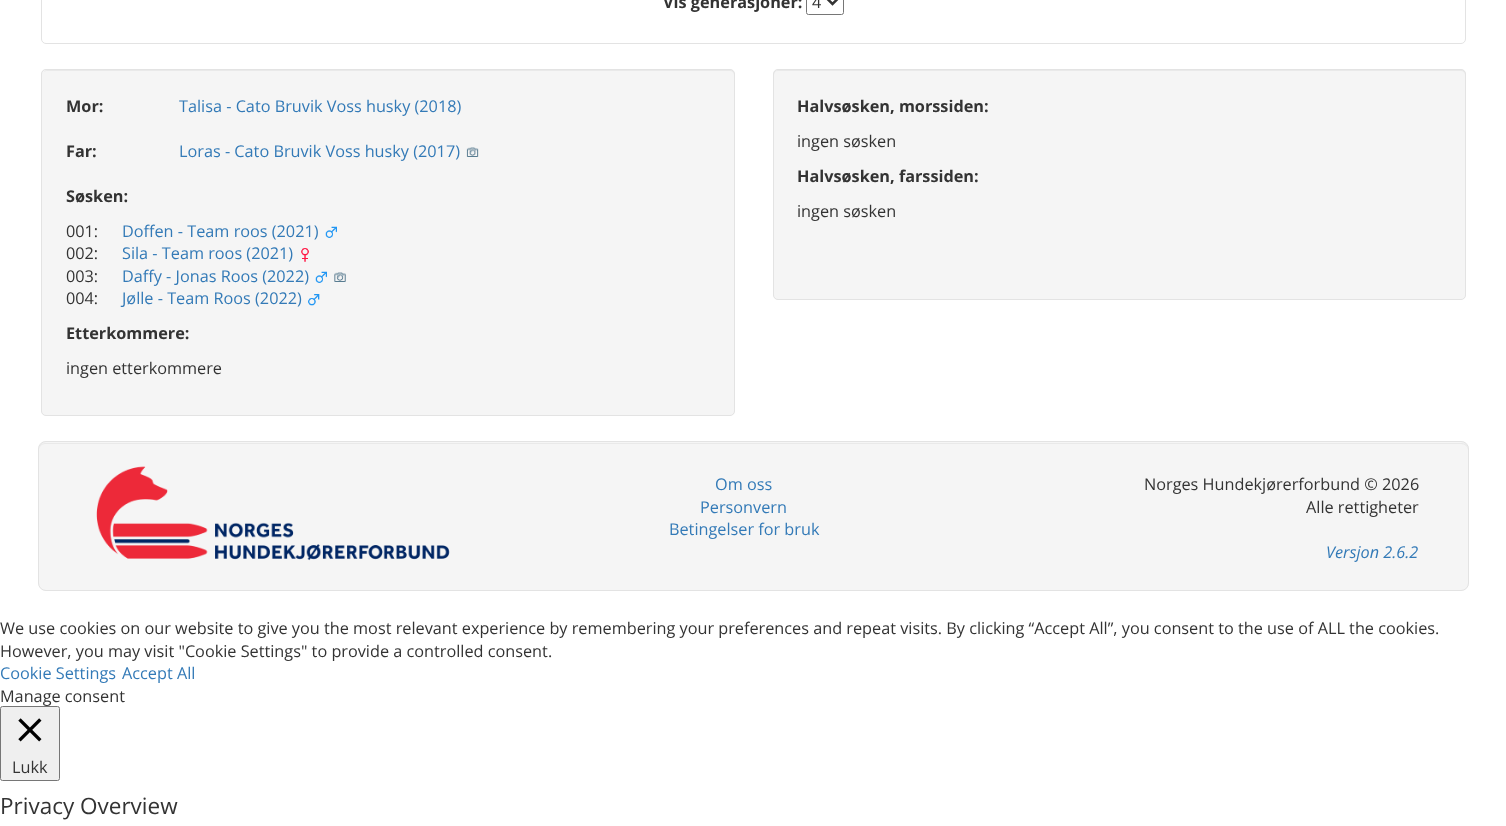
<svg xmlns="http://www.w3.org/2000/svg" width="1506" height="826">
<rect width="100%" height="100%" fill="#fff"/>
<rect x="41.5" y="-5.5" width="1424" height="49" rx="4.5" fill="none" stroke="#e3e3e3"/>
<text x="663" y="8" style="font-family:Open Sans;font-size:16.25px;font-weight:bold;fill:#333">Vis generasjoner:</text>
<rect x="806.5" y="-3.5" width="37" height="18" rx="2" fill="none" stroke="#767676"/>
<path d="M827.5-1l5 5l5-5" fill="none" stroke="#333" stroke-width="2.5"/>
<text x="812" y="8" style="font-family:Open Sans;font-size:16.25px;fill:#333">4</text>
<rect x="41" y="69" width="694" height="347" rx="5" fill="#f5f5f5"/>
<path d="M46 71h684c2 0 4 2 4 4v-1c0-2-2-4-4-4h-683c-1 0-3 1-3 2z" fill="#e9e9e9"/>
<rect x="41.5" y="69.5" width="693" height="346" rx="4.5" fill="none" stroke="#e3e3e3"/>
<text x="66" y="112" style="font-family:Open Sans;font-size:16.25px;font-weight:bold;fill:#333">Mor:</text>
<text x="179" y="112" style="font-family:Open Sans;font-size:16.25px;fill:#337ab7">Talisa - Cato Bruvik Voss husky (2018)</text>
<text x="66" y="157" style="font-family:Open Sans;font-size:16.25px;font-weight:bold;fill:#333">Far:</text>
<text x="179" y="157" style="font-family:Open Sans;font-size:16.25px;fill:#337ab7">Loras - Cato Bruvik Voss husky (2017)</text>
<image x="466" y="147" width="13" height="10" href="media/1.png"/>
<text x="66" y="202" style="font-family:Open Sans;font-size:16.25px;font-weight:bold;fill:#333">Søsken:</text>
<text x="66" y="237" style="font-family:Open Sans;font-size:16.25px;fill:#333">001:</text>
<text x="122" y="237" style="font-family:Open Sans;font-size:16.25px;fill:#337ab7">Doffen - Team roos (2021)</text>
<image x="325" y="226" width="12" height="12" href="media/2.png"/>
<text x="66" y="259" style="font-family:Open Sans;font-size:16.25px;fill:#333">002:</text>
<text x="122" y="259" style="font-family:Open Sans;font-size:16.25px;fill:#337ab7">Sila - Team roos (2021)</text>
<image x="301" y="248" width="8" height="14" href="media/3.png"/>
<text x="66" y="282" style="font-family:Open Sans;font-size:16.25px;fill:#333">003:</text>
<text x="122" y="282" style="font-family:Open Sans;font-size:16.25px;fill:#337ab7">Daffy - Jonas Roos (2022)</text>
<image x="315" y="271" width="12" height="12" href="media/2.png"/>
<image x="334" y="272" width="12" height="10" href="media/4.png"/>
<text x="66" y="304" style="font-family:Open Sans;font-size:16.25px;fill:#333">004:</text>
<text x="122" y="304" style="font-family:Open Sans;font-size:16.25px;fill:#337ab7">Jølle - Team Roos (2022)</text>
<image x="308" y="294" width="12" height="12" href="media/5.png"/>
<text x="66" y="339" style="font-family:Open Sans;font-size:16.25px;font-weight:bold;fill:#333">Etterkommere:</text>
<text x="66" y="374" style="font-family:Open Sans;font-size:16.25px;fill:#333">ingen etterkommere</text>
<rect x="773" y="69" width="693" height="231" rx="5" fill="#f5f5f5"/>
<path d="M778 71h683c2 0 4 2 4 4c0-3-1-5-4-5h-683l-3 1l-1 1v3c0-2 1-4 4-4z" fill="#e9e9e9"/>
<rect x="773.5" y="69.5" width="692" height="230" rx="4.5" fill="none" stroke="#e3e3e3"/>
<text x="797" y="112" style="font-family:Open Sans;font-size:16.25px;font-weight:bold;fill:#333">Halvsøsken, morssiden:</text>
<text x="797" y="147" style="font-family:Open Sans;font-size:16.25px;fill:#333">ingen søsken</text>
<text x="797" y="182" style="font-family:Open Sans;font-size:16.25px;font-weight:bold;fill:#333">Halvsøsken, farssiden:</text>
<text x="797" y="217" style="font-family:Open Sans;font-size:16.25px;fill:#333">ingen søsken</text>
<rect x="38" y="441" width="1431" height="150" rx="8" fill="#f5f5f5"/>
<path d="M45 444h1416c4 0 7 3 7 6c0-4-2-7-6-7h-1417c-4 0-6 3-6 7c0-3 3-6 6-6z" fill="#e9e9e9"/>
<rect x="38.5" y="441.5" width="1430" height="149" rx="7.5" fill="none" stroke="#e3e3e3"/>
<image x="96" y="466" width="354" height="95" href="media/6.png"/>
<text x="715" y="490" style="font-family:Open Sans;font-size:16.25px;fill:#337ab7">Om oss</text>
<text x="700" y="513" style="font-family:Open Sans;font-size:16.25px;fill:#337ab7">Personvern</text>
<text x="669" y="535" style="font-family:Open Sans;font-size:16.25px;fill:#337ab7">Betingelser for bruk</text>
<text x="1144" y="490" style="font-family:Open Sans;font-size:16.25px;fill:#333">Norges Hundekjørerforbund © 2026</text>
<text x="1306" y="513" style="font-family:Open Sans;font-size:16.25px;fill:#333">Alle rettigheter</text>
<text x="1326" y="558" style="font-family:Open Sans;font-size:16.25px;font-style:italic;fill:#337ab7">Versjon 2.6.2</text>
<text x="0" y="634" style="font-family:Open Sans;font-size:16.25px;fill:#333">We use cookies on our website to give you the most relevant experience by remembering your preferences and repeat visits. By clicking “Accept All”, you consent to the use of ALL the cookies.</text>
<text x="0" y="657" style="font-family:Open Sans;font-size:16.25px;fill:#333">However, you may visit "Cookie Settings" to provide a controlled consent.</text>
<text x="0" y="679" style="font-family:Open Sans;font-size:16.25px;fill:#337ab7">Cookie Settings</text>
<text x="122" y="679" style="font-family:Open Sans;font-size:16.25px;fill:#337ab7">Accept All</text>
<text x="0" y="702" style="font-family:Open Sans;font-size:16.25px;fill:#333">Manage consent</text>
<rect x="0.5" y="706.5" width="59" height="74" rx="2" fill="#efefef" stroke="#767676"/>
<image x="18" y="718" width="24" height="24" href="media/7.png"/>
<text x="12" y="773" style="font-family:Open Sans;font-size:16.25px;fill:#333">Lukk</text>
<text x="0" y="814" style="font-family:Open Sans;font-size:22.5px;fill:#333">Privacy Overview</text>
</svg>
